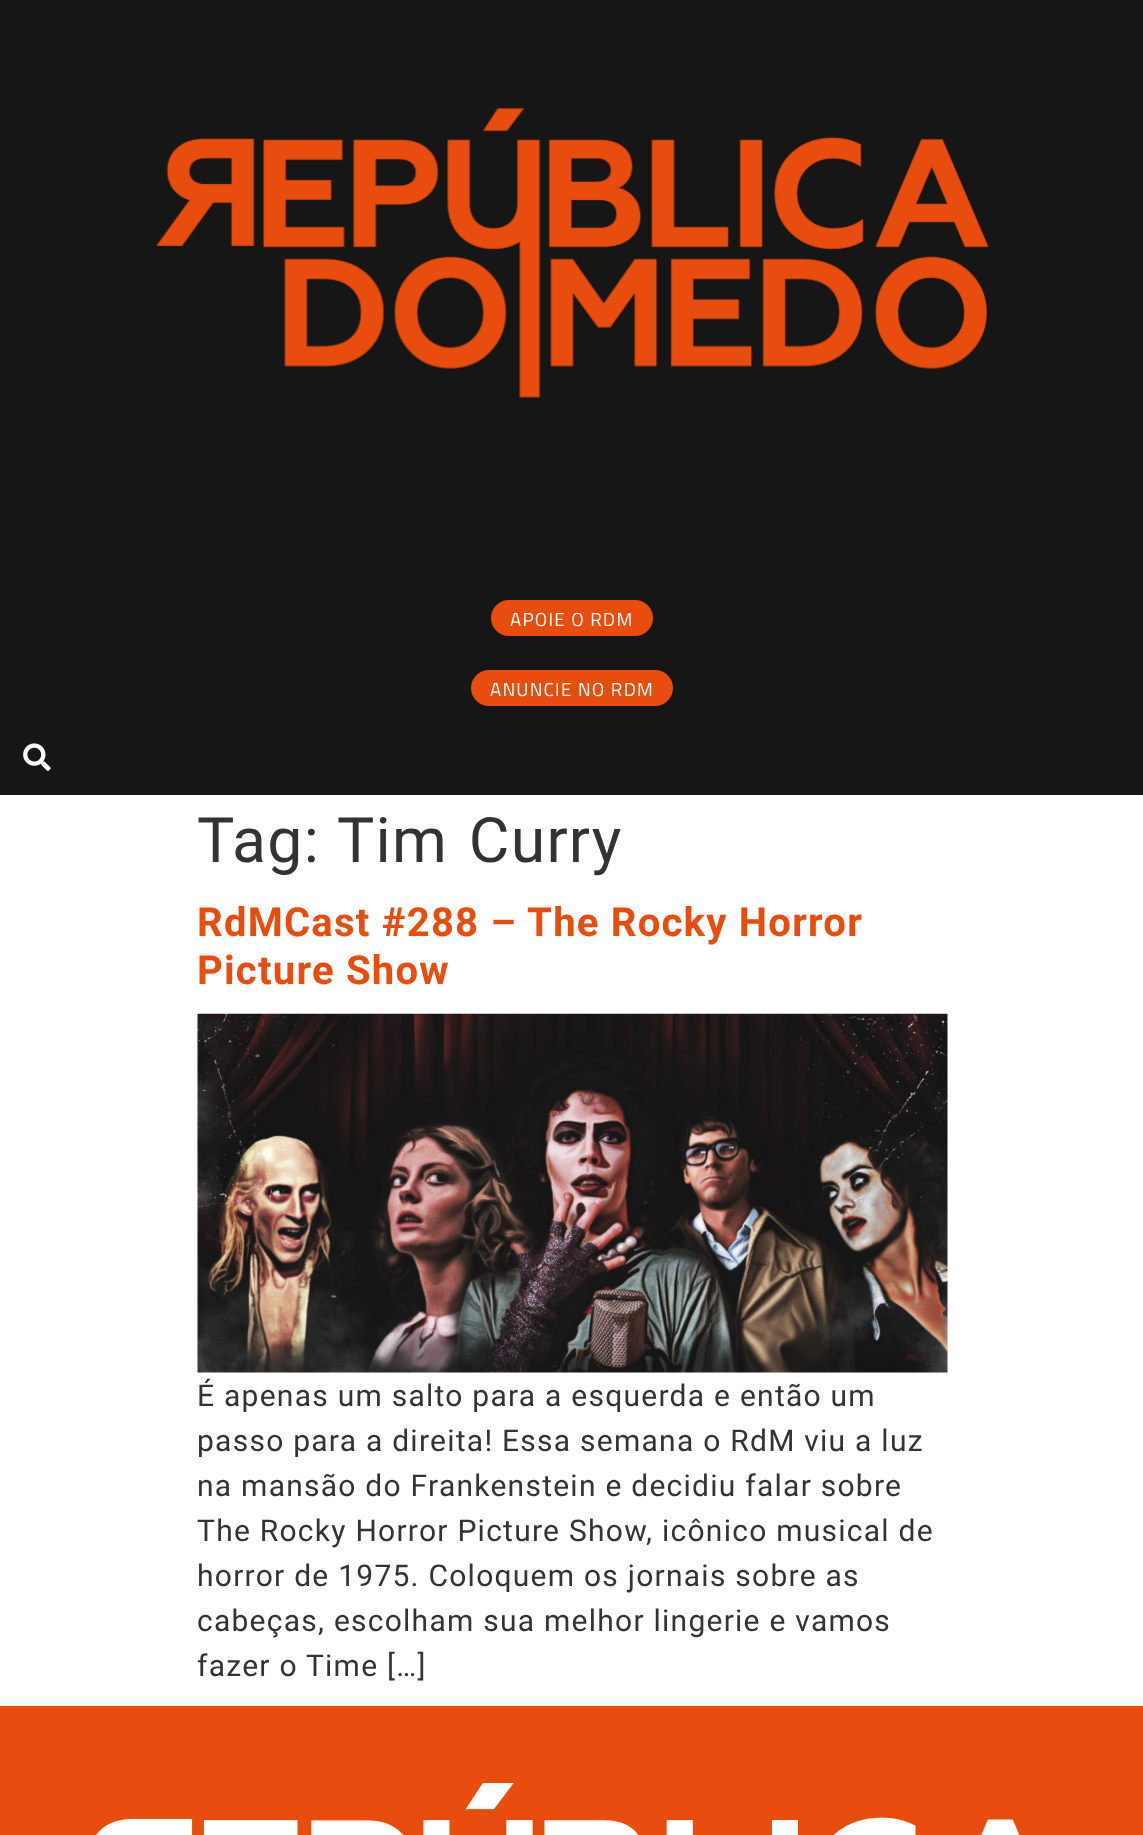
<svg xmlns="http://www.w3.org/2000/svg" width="1143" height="1835">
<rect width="100%" height="100%" fill="#fff"/>
<rect width="1143" height="795" fill="#161616"/>
<image x="156" y="107" width="833" height="291" href="media/1.png"/>
<rect x="491" y="600" width="162" height="36" rx="18" fill="#e84c0e"/>
<text x="510" y="626" style="font-family:Titillium Web;font-size:18.75px;letter-spacing:1.25px;fill:#fff">APOIE O RDM</text>
<rect x="471" y="670" width="202" height="36" rx="18" fill="#e84c0e"/>
<text x="490" y="696" style="font-family:Titillium Web;font-size:18.75px;letter-spacing:1.25px;fill:#fff">ANUNCIE NO RDM</text>
<image x="23" y="743" width="28" height="28" href="media/2.png"/>
<text x="197" y="862" style="font-family:Roboto;font-size:62.5px;letter-spacing:1.25px;fill:#333">Tag:</text>
<text x="337" y="862" word-spacing="4" style="font-family:Roboto;font-size:62.5px;letter-spacing:1.25px;fill:#333">Tim Curry</text>
<text x="197" y="936" style="font-family:Roboto;font-size:40px;font-weight:bold;letter-spacing:1.25px;fill:#e84c0e">RdMCast #288 – The Rocky Horror</text>
<text x="197" y="984" style="font-family:Roboto;font-size:40px;font-weight:bold;letter-spacing:1.25px;fill:#e84c0e">Picture Show</text>
<image x="197" y="1013" width="751" height="360" href="media/3.png"/>
<text x="197" y="1406" style="font-family:Roboto;font-size:30px;letter-spacing:1.25px;fill:#333">É apenas um salto para a esquerda e então um</text>
<text x="197" y="1451" style="font-family:Roboto;font-size:30px;letter-spacing:1.25px;fill:#333">passo para a direita! Essa semana o RdM viu a luz</text>
<text x="197" y="1496" style="font-family:Roboto;font-size:30px;letter-spacing:1.25px;fill:#333">na mansão do Frankenstein e decidiu falar sobre</text>
<text x="197" y="1541" style="font-family:Roboto;font-size:30px;letter-spacing:1.25px;fill:#333">The Rocky Horror Picture Show, icônico musical de</text>
<text x="197" y="1586" style="font-family:Roboto;font-size:30px;letter-spacing:1.25px;fill:#333">horror de 1975. Coloquem os jornais sobre as</text>
<text x="197" y="1631" style="font-family:Roboto;font-size:30px;letter-spacing:1.25px;fill:#333">cabeças, escolham sua melhor lingerie e vamos</text>
<text x="197" y="1676" style="font-family:Roboto;font-size:30px;letter-spacing:1.25px;fill:#333">fazer o Time […]</text>
<rect y="1706" width="1143" height="129" fill="#e84c0e"/>
<image x="96" y="1783" width="924" height="52" href="media/4.png"/>
</svg>
